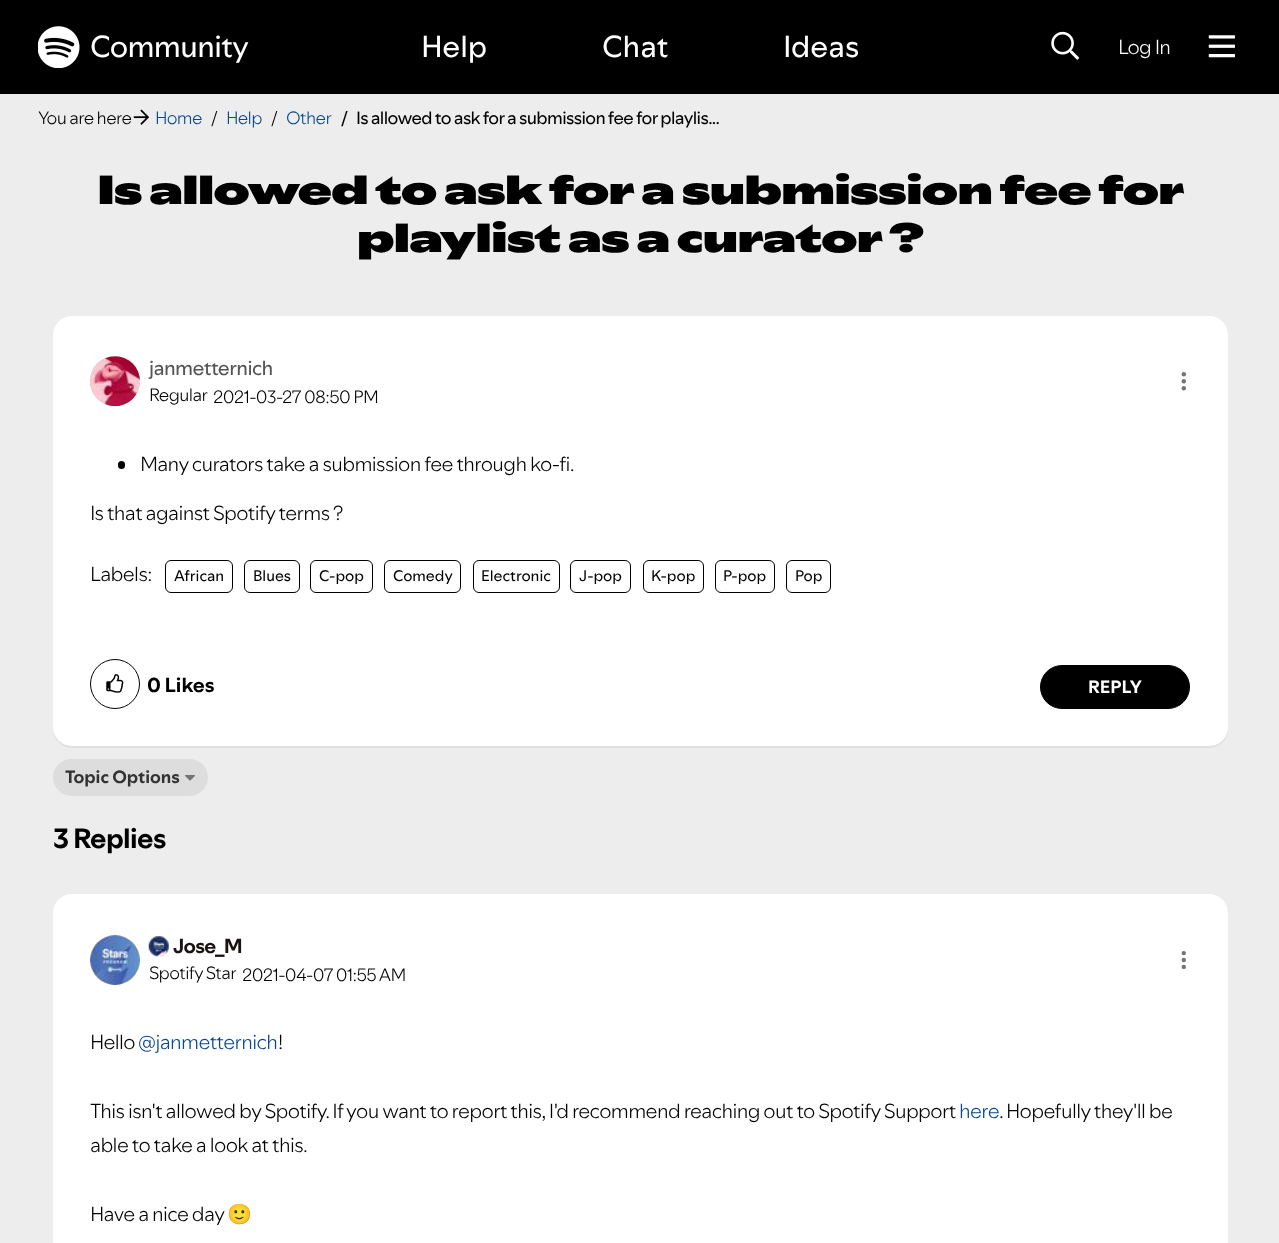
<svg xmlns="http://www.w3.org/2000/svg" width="1279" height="1243">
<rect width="100%" height="100%" fill="#ededed"/>
<rect width="1279" height="94" fill="#000"/>
<image x="38" y="26" width="42" height="42" href="media/1.png"/>
<text x="90" y="57" style="font-family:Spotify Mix;font-size:30px;letter-spacing:-0.62px;fill:#fff">Community</text>
<text x="421" y="57" style="font-family:Spotify Mix;font-size:30px;fill:#fff">Help</text>
<text x="602" y="57" style="font-family:Spotify Mix;font-size:30px;fill:#fff">Chat</text>
<text x="783" y="57" style="font-family:Spotify Mix;font-size:30px;fill:#fff">Ideas</text>
<image x="1051" y="31" width="29" height="29" href="media/2.png"/>
<text x="1118" y="54" style="font-family:Spotify Mix;font-size:20px;font-weight:300;letter-spacing:-0.62px;fill:#fff">Log In</text>
<image x="1208" y="35" width="27" height="23" href="media/3.png"/>
<text x="38" y="124" style="font-family:Spotify Mix;font-size:17.5px;font-weight:300;letter-spacing:-0.62px;fill:#000">You are here</text>
<image x="133" y="109" width="16" height="16" href="media/4.png"/>
<text x="155" y="124" style="font-family:Spotify Mix;font-size:17.5px;font-weight:300;letter-spacing:-0.62px;fill:#084791">Home</text>
<text x="211" y="124" style="font-family:Spotify Mix;font-size:17.5px;font-weight:300;letter-spacing:-0.62px;fill:#000">/</text>
<text x="226" y="124" style="font-family:Spotify Mix;font-size:17.5px;font-weight:300;letter-spacing:-0.62px;fill:#084791">Help</text>
<text x="271" y="124" style="font-family:Spotify Mix;font-size:17.5px;font-weight:300;letter-spacing:-0.62px;fill:#000">/</text>
<text x="286" y="124" style="font-family:Spotify Mix;font-size:17.5px;font-weight:300;letter-spacing:-0.62px;fill:#084791">Other</text>
<text x="341" y="124" style="font-family:Spotify Mix;font-size:17.5px;letter-spacing:-0.62px;fill:#000">/</text>
<text x="356" y="124" style="font-family:Spotify Mix;font-size:17.5px;letter-spacing:-0.62px;fill:#000">Is allowed to ask for a submission fee for playlis...</text>
<text x="97" y="204" style="font-family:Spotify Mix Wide;font-size:40px;font-weight:900;letter-spacing:-0.62px;fill:#000">Is allowed to ask for a submission fee for</text>
<text x="357" y="252" style="font-family:Spotify Mix Wide;font-size:40px;font-weight:900;letter-spacing:-0.62px;fill:#000">playlist as a curator ?</text>
<rect x="53" y="318" width="1175" height="430" rx="19" fill="#0000000d" filter="blur(0.5px)"/>
<rect x="53" y="316" width="1175" height="430" rx="19" fill="#fff"/>
<rect x="90" y="356" width="50" height="50" rx="25" fill="#c4c4c4" filter="blur(0.5px)"/>
<image x="90" y="356" width="50" height="51" href="media/5.png"/>
<text x="149" y="375" style="font-family:Spotify Mix;font-size:20px;letter-spacing:-0.62px;fill:#555">janmetternich</text>
<text x="149" y="401" style="font-family:Spotify Mix;font-size:17.5px;font-weight:300;letter-spacing:-0.62px;fill:#000">Regular</text>
<text x="213" y="403" style="font-family:Spotify Mix;font-size:17.5px;font-weight:300;letter-spacing:-0.62px;fill:#000">2021-03-27</text>
<text x="304" y="403" style="font-family:Spotify Mix;font-size:17.5px;font-weight:300;letter-spacing:-0.62px;fill:#000">08:50 PM</text>
<circle cx="1183.8" cy="374.3" r="2.2" fill="#747474"/>
<circle cx="1183.8" cy="381.2" r="2.2" fill="#747474"/>
<circle cx="1183.8" cy="388.2" r="2.2" fill="#747474"/>
<rect x="118" y="461" width="7" height="8" rx="3.5" fill="#000"/>
<text x="140" y="471" style="font-family:Spotify Mix;font-size:20px;font-weight:300;letter-spacing:-0.62px;fill:#000">Many curators take a submission fee through ko-fi.</text>
<text x="90" y="520" style="font-family:Spotify Mix;font-size:20px;font-weight:300;letter-spacing:-0.62px;fill:#000">Is that against Spotify terms ?</text>
<text x="90" y="581" style="font-family:Spotify Mix;font-size:20px;font-weight:300;letter-spacing:-0.62px;fill:#000">Labels:</text>
<rect x="165.5" y="560.5" width="67" height="32" rx="5.5" fill="none" stroke="#000"/>
<text x="174" y="581" style="font-family:Spotify Mix;font-size:15px;fill:#000">African</text>
<rect x="244.5" y="560.5" width="55" height="32" rx="5.5" fill="none" stroke="#000"/>
<text x="253" y="581" style="font-family:Spotify Mix;font-size:15px;fill:#000">Blues</text>
<rect x="310.5" y="560.5" width="62" height="32" rx="5.5" fill="none" stroke="#000"/>
<text x="319" y="581" style="font-family:Spotify Mix;font-size:15px;fill:#000">C-pop</text>
<rect x="384.5" y="560.5" width="76" height="32" rx="5.5" fill="none" stroke="#000"/>
<text x="393" y="581" style="font-family:Spotify Mix;font-size:15px;fill:#000">Comedy</text>
<rect x="473.5" y="560.5" width="86" height="32" rx="5.5" fill="none" stroke="#000"/>
<text x="481" y="581" style="font-family:Spotify Mix;font-size:15px;fill:#000">Electronic</text>
<rect x="570.5" y="560.5" width="60" height="32" rx="5.5" fill="none" stroke="#000"/>
<text x="579" y="581" style="font-family:Spotify Mix;font-size:15px;fill:#000">J-pop</text>
<rect x="643.5" y="560.5" width="60" height="32" rx="5.5" fill="none" stroke="#000"/>
<text x="651" y="581" style="font-family:Spotify Mix;font-size:15px;fill:#000">K-pop</text>
<rect x="715.5" y="560.5" width="59" height="32" rx="5.5" fill="none" stroke="#000"/>
<text x="723" y="581" style="font-family:Spotify Mix;font-size:15px;fill:#000">P-pop</text>
<rect x="786.5" y="560.5" width="44" height="32" rx="5.5" fill="none" stroke="#000"/>
<text x="795" y="581" style="font-family:Spotify Mix;font-size:15px;fill:#000">Pop</text>
<circle cx="115" cy="684" r="24.5" fill="none" stroke="#000"/>
<image x="106" y="674" width="18" height="19" href="media/6.png"/>
<text x="147" y="692" style="font-family:Spotify Mix;font-size:20px;font-weight:bold;fill:#000">0 Likes</text>
<rect x="1040.5" y="665.5" width="149" height="43" rx="21.5" fill="#000" stroke="#000"/>
<text x="1088" y="693" style="font-family:Spotify Mix;font-size:17.5px;font-weight:bold;fill:#fff">REPLY</text>
<rect x="53" y="759" width="155" height="37" rx="18.5" fill="#ddd"/>
<text x="65" y="783" style="font-family:Spotify Mix;font-size:17.5px;font-weight:bold;fill:#333">Topic Options</text>
<image x="185" y="775" width="10" height="6" href="media/7.png"/>
<text x="53" y="848" style="font-family:Spotify Mix;font-size:27.5px;font-weight:bold;letter-spacing:-0.62px;fill:#000">3 Replies</text>
<rect x="53" y="895" width="1175" height="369" rx="19" fill="#0000000d" filter="blur(0.5px)"/>
<rect x="53" y="894" width="1175" height="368" rx="19" fill="#fff"/>
<rect x="90" y="935" width="50" height="50" rx="25" fill="#c4c4c4" filter="blur(0.5px)"/>
<image x="90" y="935" width="50" height="50" href="media/8.png"/>
<image x="148" y="936" width="21" height="21" href="media/9.png"/>
<text x="173" y="953" style="font-family:Spotify Mix;font-size:20px;font-weight:bold;letter-spacing:-0.62px;fill:#191414">Jose_M</text>
<text x="149" y="979" style="font-family:Spotify Mix;font-size:17.5px;font-weight:300;letter-spacing:-0.62px;fill:#000">Spotify Star</text>
<text x="242" y="981" style="font-family:Spotify Mix;font-size:17.5px;font-weight:300;letter-spacing:-0.62px;fill:#000">2021-04-07 01:55 AM</text>
<circle cx="1183.8" cy="953.1" r="2.2" fill="#747474"/>
<circle cx="1183.8" cy="960" r="2.2" fill="#747474"/>
<circle cx="1183.8" cy="966.9" r="2.2" fill="#747474"/>
<text x="90" y="1049" style="font-family:Spotify Mix;font-size:20px;font-weight:300;letter-spacing:-0.62px;fill:#000">Hello</text>
<text x="138" y="1049" style="font-family:Spotify Mix;font-size:20px;font-weight:300;letter-spacing:-0.62px;fill:#084791">@janmetternich</text>
<text x="278" y="1049" style="font-family:Spotify Mix;font-size:20px;font-weight:300;letter-spacing:-0.62px;fill:#000">!</text>
<text x="90" y="1118" style="font-family:Spotify Mix;font-size:20px;font-weight:300;letter-spacing:-0.62px;fill:#000">This isn't allowed by Spotify. If you want to report this, I'd recommend reaching out to Spotify Support</text>
<text x="959" y="1118" style="font-family:Spotify Mix;font-size:20px;font-weight:300;letter-spacing:-0.62px;fill:#084791">here</text>
<text x="999" y="1118" style="font-family:Spotify Mix;font-size:20px;font-weight:300;letter-spacing:-0.62px;fill:#000">. Hopefully they'll be</text>
<text x="90" y="1152" style="font-family:Spotify Mix;font-size:20px;font-weight:300;letter-spacing:-0.62px;fill:#000">able to take a look at this.</text>
<text x="90" y="1221" style="font-family:Spotify Mix;font-size:20px;font-weight:300;letter-spacing:-0.62px;fill:#000">Have a nice day</text>
<text x="227" y="1221" style="font-family:Noto Color Emoji;font-size:20px;letter-spacing:-0.62px;fill:#000">🙂</text>
</svg>
